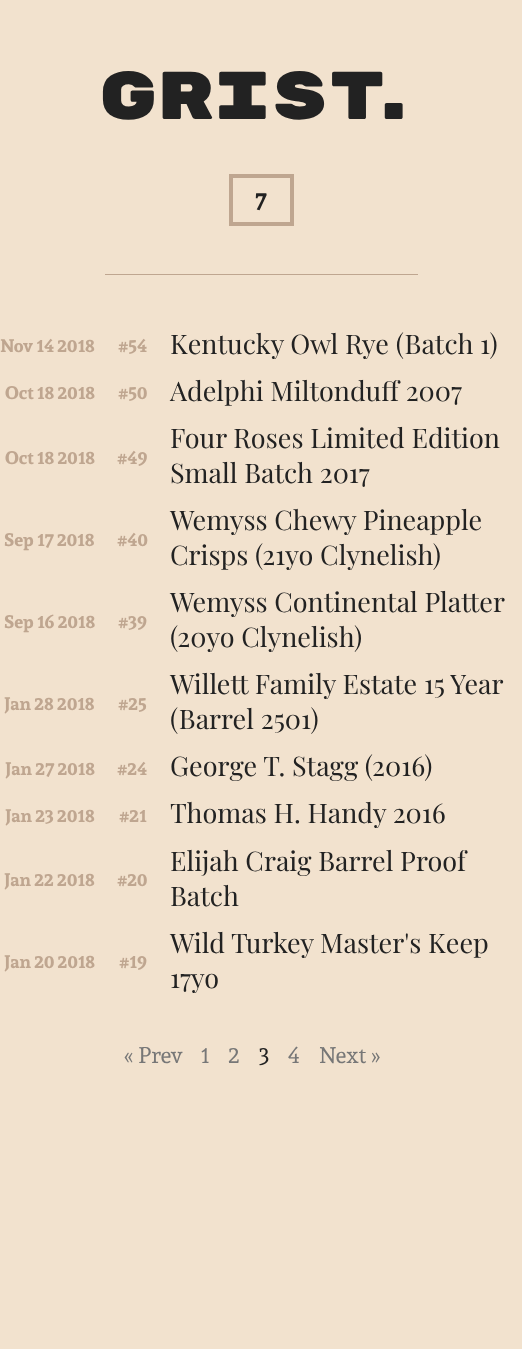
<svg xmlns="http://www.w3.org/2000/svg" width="522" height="1349">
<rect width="100%" height="100%" fill="#f2e2ce"/>
<text x="99" y="119" style="font-family:Rubik Mono One;font-size:67.5px;fill:#222">Grist</text>
<text x="365" y="119" style="font-family:Rubik Mono One;font-size:67.5px;fill:#222">.</text>
<rect x="231" y="176" width="61" height="48" fill="none" stroke="#bfa690" stroke-width="4"/>
<text x="255" y="208" style="font-family:Sura;font-size:22.5px;font-weight:bold;fill:#222">7</text>
<rect x="105" y="274" width="313" height="1" fill="#bfa690"/>
<text x="0" y="352" style="font-family:Sura;font-size:18px;font-weight:bold;fill:#bfa690">Nov 14 2018</text>
<text x="118" y="352" style="font-family:Sura;font-size:18px;font-weight:bold;fill:#bfa690">#54</text>
<text x="170" y="354" style="font-family:Playfair Display;font-size:27px;fill:#222">Kentucky Owl Rye (Batch 1)</text>
<text x="5" y="399" style="font-family:Sura;font-size:18px;font-weight:bold;fill:#bfa690">Oct 18 2018</text>
<text x="118" y="399" style="font-family:Sura;font-size:18px;font-weight:bold;fill:#bfa690">#50</text>
<text x="170" y="401" style="font-family:Playfair Display;font-size:27px;fill:#222">Adelphi Miltonduff 2007</text>
<text x="5" y="464" style="font-family:Sura;font-size:18px;font-weight:bold;fill:#bfa690">Oct 18 2018</text>
<text x="117" y="464" style="font-family:Sura;font-size:18px;font-weight:bold;fill:#bfa690">#49</text>
<text x="170" y="448" style="font-family:Playfair Display;font-size:27px;fill:#222">Four Roses Limited Edition</text>
<text x="170" y="483" style="font-family:Playfair Display;font-size:27px;fill:#222">Small Batch 2017</text>
<text x="4" y="546" style="font-family:Sura;font-size:18px;font-weight:bold;fill:#bfa690">Sep 17 2018</text>
<text x="117" y="546" style="font-family:Sura;font-size:18px;font-weight:bold;fill:#bfa690">#40</text>
<text x="170" y="530" style="font-family:Playfair Display;font-size:27px;fill:#222">Wemyss Chewy Pineapple</text>
<text x="170" y="565" style="font-family:Playfair Display;font-size:27px;fill:#222">Crisps (21yo Clynelish)</text>
<text x="4" y="628" style="font-family:Sura;font-size:18px;font-weight:bold;fill:#bfa690">Sep 16 2018</text>
<text x="118" y="628" style="font-family:Sura;font-size:18px;font-weight:bold;fill:#bfa690">#39</text>
<text x="170" y="612" style="font-family:Playfair Display;font-size:27px;fill:#222">Wemyss Continental Platter</text>
<text x="170" y="647" style="font-family:Playfair Display;font-size:27px;fill:#222">(20yo Clynelish)</text>
<text x="4" y="710" style="font-family:Sura;font-size:18px;font-weight:bold;fill:#bfa690">Jan 28 2018</text>
<text x="118" y="710" style="font-family:Sura;font-size:18px;font-weight:bold;fill:#bfa690">#25</text>
<text x="170" y="694" style="font-family:Playfair Display;font-size:27px;fill:#222">Willett Family Estate 15 Year</text>
<text x="170" y="729" style="font-family:Playfair Display;font-size:27px;fill:#222">(Barrel 2501)</text>
<text x="5" y="775" style="font-family:Sura;font-size:18px;font-weight:bold;fill:#bfa690">Jan 27 2018</text>
<text x="117" y="775" style="font-family:Sura;font-size:18px;font-weight:bold;fill:#bfa690">#24</text>
<text x="170" y="776" style="font-family:Playfair Display;font-size:27px;fill:#222">George T. Stagg (2016)</text>
<text x="5" y="822" style="font-family:Sura;font-size:18px;font-weight:bold;fill:#bfa690">Jan 23 2018</text>
<text x="119" y="822" style="font-family:Sura;font-size:18px;font-weight:bold;fill:#bfa690">#21</text>
<text x="170" y="823" style="font-family:Playfair Display;font-size:27px;fill:#222">Thomas H. Handy 2016</text>
<text x="4" y="886" style="font-family:Sura;font-size:18px;font-weight:bold;fill:#bfa690">Jan 22 2018</text>
<text x="117" y="886" style="font-family:Sura;font-size:18px;font-weight:bold;fill:#bfa690">#20</text>
<text x="170" y="871" style="font-family:Playfair Display;font-size:27px;fill:#222">Elijah Craig Barrel Proof</text>
<text x="170" y="906" style="font-family:Playfair Display;font-size:27px;fill:#222">Batch</text>
<text x="4" y="968" style="font-family:Sura;font-size:18px;font-weight:bold;fill:#bfa690">Jan 20 2018</text>
<text x="119" y="968" style="font-family:Sura;font-size:18px;font-weight:bold;fill:#bfa690">#19</text>
<text x="170" y="953" style="font-family:Playfair Display;font-size:27px;fill:#222">Wild Turkey Master's Keep</text>
<text x="170" y="988" style="font-family:Playfair Display;font-size:27px;fill:#222">17yo</text>
<text x="124" y="1063" style="font-family:Sura;font-size:22.5px;fill:#777">« Prev</text>
<text x="201" y="1063" style="font-family:Sura;font-size:22.5px;fill:#777">1</text>
<text x="228" y="1063" style="font-family:Sura;font-size:22.5px;fill:#777">2</text>
<text x="259" y="1063" style="font-family:Sura;font-size:22.5px;fill:#222">3</text>
<text x="288" y="1063" style="font-family:Sura;font-size:22.5px;fill:#777">4</text>
<text x="319" y="1063" style="font-family:Sura;font-size:22.5px;fill:#777">Next »</text>
</svg>
